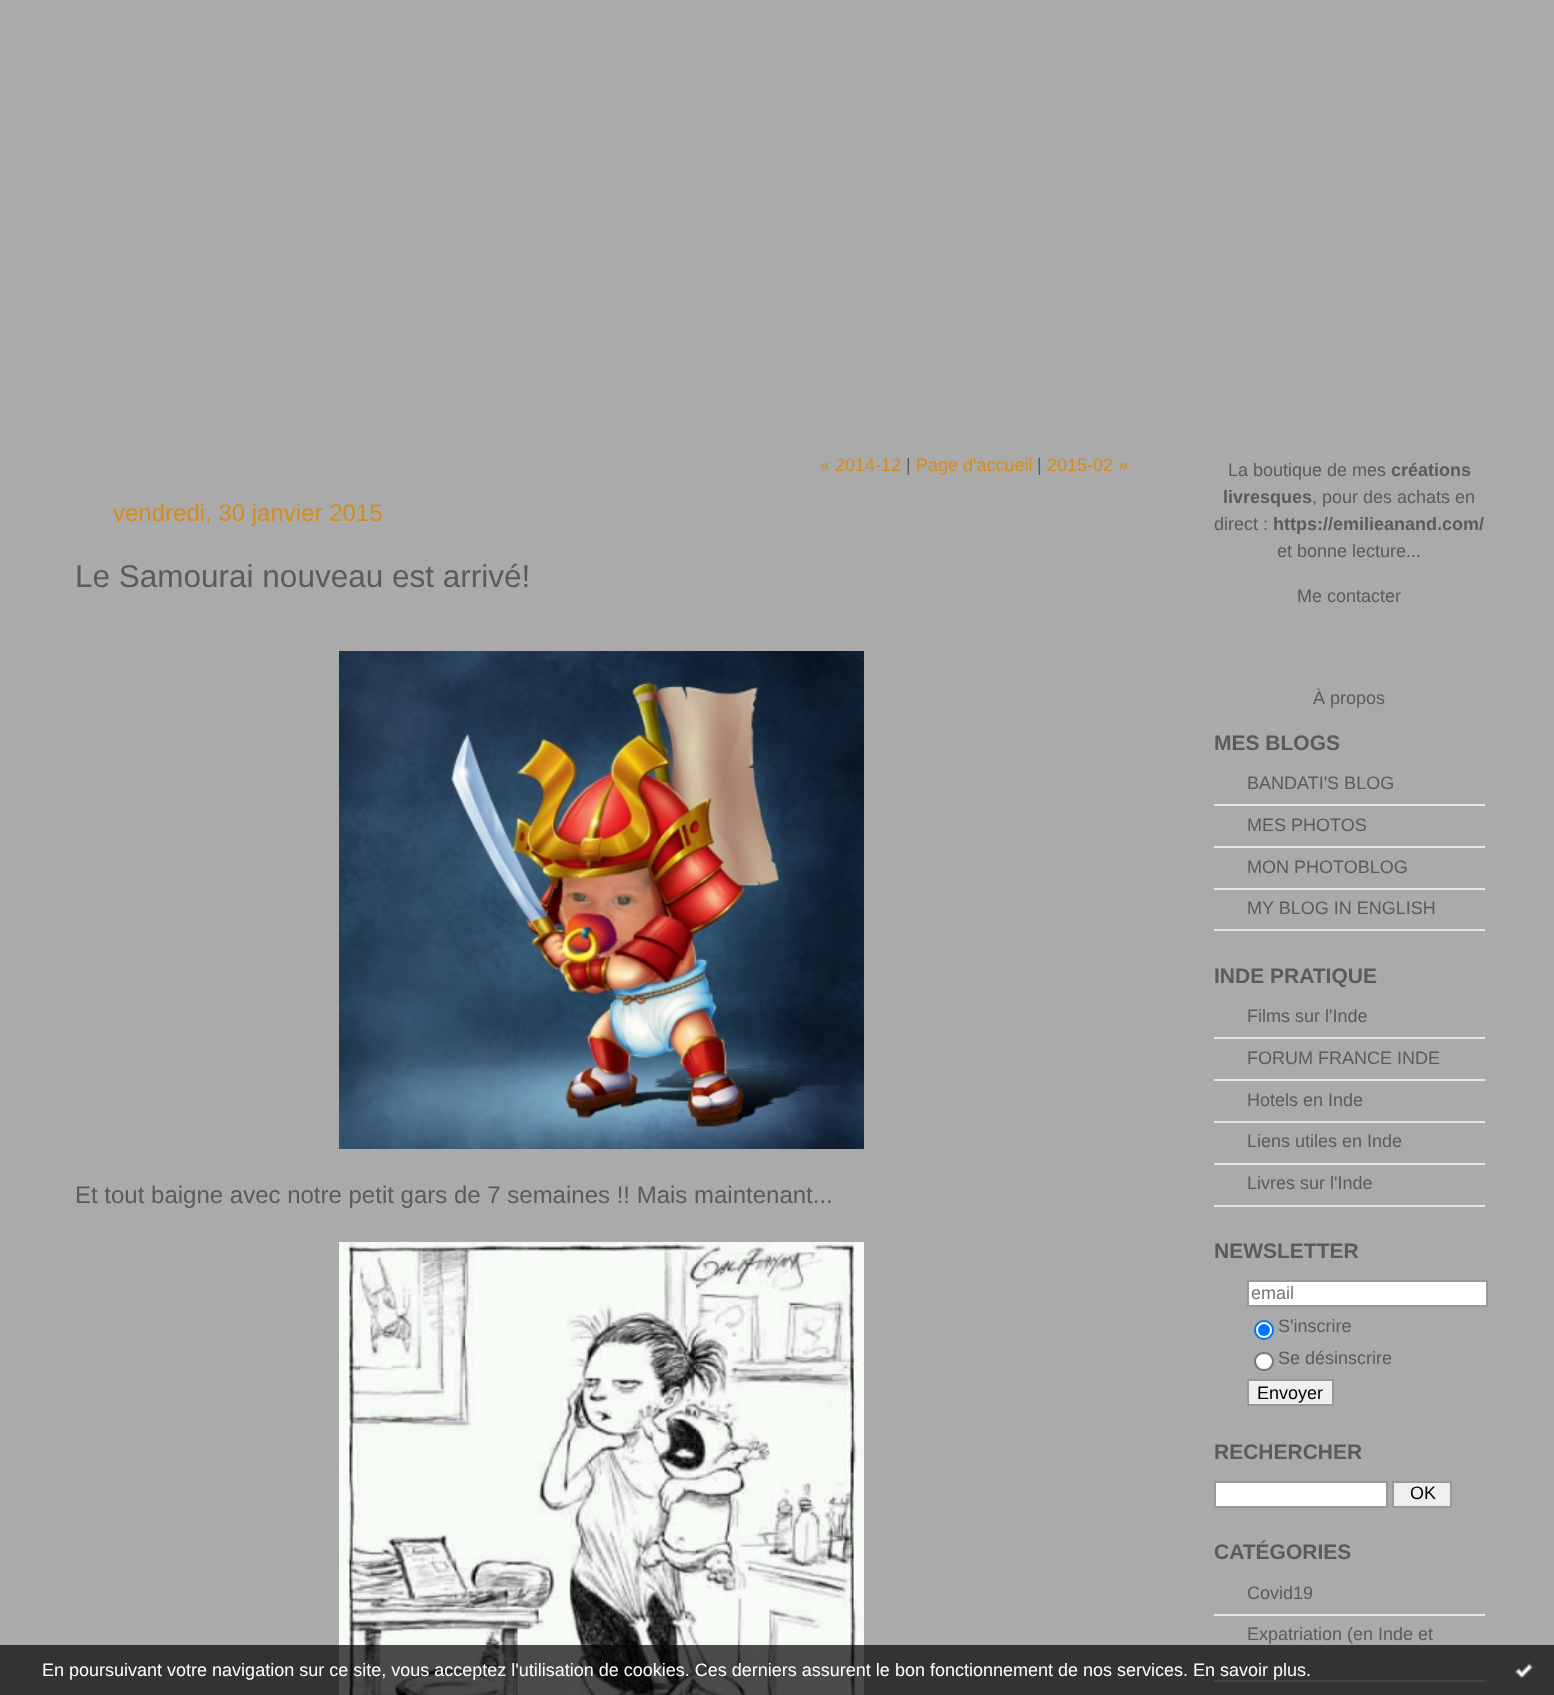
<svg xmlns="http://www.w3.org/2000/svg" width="1554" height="1695">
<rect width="100%" height="100%" fill="#aaa"/>
<text x="820" y="471" style="font-family:Liberation Sans;font-size:18px;fill:#d68c1d">« 2014-12</text>
<text x="906" y="471" style="font-family:Liberation Sans;font-size:18px;fill:#5b5b5b">|</text>
<text x="916" y="471" style="font-family:Liberation Sans;font-size:18px;fill:#d68c1d">Page d'accueil</text>
<text x="1037" y="471" style="font-family:Liberation Sans;font-size:18px;fill:#5b5b5b">|</text>
<text x="1047" y="471" style="font-family:Liberation Sans;font-size:18px;fill:#d68c1d">2015-02 »</text>
<text x="113" y="521" style="font-family:Liberation Sans;font-size:24px;fill:#d68c1d">vendredi, 30 janvier 2015</text>
<text x="75" y="587" style="font-family:Liberation Sans;font-size:31.5px;fill:#5b5b5b">Le Samourai nouveau est arrivé!</text>
<image x="339" y="651" width="525" height="498" href="media/1.png"/>
<text x="75" y="1203" style="font-family:Liberation Sans;font-size:24px;fill:#5b5b5b">Et tout baigne avec notre petit gars de 7 semaines !! Mais maintenant...</text>
<image x="339" y="1242" width="525" height="453" href="media/2.png"/>
<text x="1228" y="476" style="font-family:Liberation Sans;font-size:18px;fill:#5b5b5b">La boutique de mes</text>
<text x="1391" y="476" style="font-family:Liberation Sans;font-size:18px;font-weight:bold;fill:#5b5b5b">créations</text>
<text x="1223" y="503" style="font-family:Liberation Sans;font-size:18px;font-weight:bold;fill:#5b5b5b">livresques</text>
<text x="1312" y="503" style="font-family:Liberation Sans;font-size:18px;fill:#5b5b5b">, pour des achats en</text>
<text x="1214" y="530" style="font-family:Liberation Sans;font-size:18px;fill:#5b5b5b">direct :</text>
<text x="1273" y="530" style="font-family:Liberation Sans;font-size:18px;font-weight:bold;fill:#5b5b5b">https://emilieanand.com/</text>
<text x="1277" y="557" style="font-family:Liberation Sans;font-size:18px;fill:#5b5b5b">et bonne lecture...</text>
<text x="1297" y="602" style="font-family:Liberation Sans;font-size:18px;fill:#5b5b5b">Me contacter</text>
<text x="1313" y="704" style="font-family:Liberation Sans;font-size:18px;fill:#5b5b5b">À propos</text>
<text x="1214" y="750" style="font-family:Liberation Sans;font-size:21px;font-weight:bold;fill:#5b5b5b">MES BLOGS</text>
<rect x="1214" y="804" width="271" height="2" fill="#e6e6e3"/>
<text x="1247" y="789" style="font-family:Liberation Sans;font-size:18px;fill:#5b5b5b">BANDATI'S BLOG</text>
<rect x="1214" y="846" width="271" height="2" fill="#e6e6e3"/>
<text x="1247" y="831" style="font-family:Liberation Sans;font-size:18px;fill:#5b5b5b">MES PHOTOS</text>
<rect x="1214" y="888" width="271" height="2" fill="#e6e6e3"/>
<text x="1247" y="873" style="font-family:Liberation Sans;font-size:18px;fill:#5b5b5b">MON PHOTOBLOG</text>
<rect x="1214" y="929" width="271" height="2" fill="#e6e6e3"/>
<text x="1247" y="914" style="font-family:Liberation Sans;font-size:18px;fill:#5b5b5b">MY BLOG IN ENGLISH</text>
<text x="1214" y="983" style="font-family:Liberation Sans;font-size:21px;font-weight:bold;fill:#5b5b5b">INDE PRATIQUE</text>
<rect x="1214" y="1037" width="271" height="2" fill="#e6e6e3"/>
<text x="1247" y="1022" style="font-family:Liberation Sans;font-size:18px;fill:#5b5b5b">Films sur l'Inde</text>
<rect x="1214" y="1079" width="271" height="2" fill="#e6e6e3"/>
<text x="1247" y="1064" style="font-family:Liberation Sans;font-size:18px;fill:#5b5b5b">FORUM FRANCE INDE</text>
<rect x="1214" y="1121" width="271" height="2" fill="#e6e6e3"/>
<text x="1247" y="1106" style="font-family:Liberation Sans;font-size:18px;fill:#5b5b5b">Hotels en Inde</text>
<rect x="1214" y="1163" width="271" height="2" fill="#e6e6e3"/>
<text x="1247" y="1147" style="font-family:Liberation Sans;font-size:18px;fill:#5b5b5b">Liens utiles en Inde</text>
<rect x="1214" y="1205" width="271" height="2" fill="#e6e6e3"/>
<text x="1247" y="1189" style="font-family:Liberation Sans;font-size:18px;fill:#5b5b5b">Livres sur l'Inde</text>
<text x="1214" y="1258" style="font-family:Liberation Sans;font-size:21px;font-weight:bold;fill:#5b5b5b">NEWSLETTER</text>
<rect x="1248" y="1281" width="239" height="25" fill="#fff" stroke="#999" stroke-width="2"/>
<text x="1251" y="1299" style="font-family:Liberation Sans;font-size:18px;fill:#757575">email</text>
<circle cx="1264" cy="1330" r="9" fill="#fff" stroke="#0075ff" stroke-width="2"/>
<circle cx="1264" cy="1330" r="6" fill="#0075ff"/>
<text x="1278" y="1332" style="font-family:Liberation Sans;font-size:18px;fill:#5b5b5b">S'inscrire</text>
<rect x="1255" y="1353" width="18" height="17" rx="8.5" fill="#fff" stroke="#767676" stroke-width="2"/>
<text x="1278" y="1364" style="font-family:Liberation Sans;font-size:18px;fill:#5b5b5b">Se désinscrire</text>
<rect x="1248" y="1380" width="85" height="25" fill="#efefef" stroke="#999" stroke-width="2"/>
<text x="1257" y="1399" style="font-family:Liberation Sans;font-size:18px;fill:#000">Envoyer</text>
<text x="1214" y="1459" style="font-family:Liberation Sans;font-size:21px;font-weight:bold;fill:#5b5b5b">RECHERCHER</text>
<rect x="1215" y="1482" width="172" height="25" fill="#fff" stroke="#999" stroke-width="2"/>
<rect x="1393" y="1482" width="58" height="25" fill="#efefef" stroke="#999" stroke-width="2"/>
<text x="1410" y="1499" style="font-family:Liberation Sans;font-size:18px;fill:#000">OK</text>
<text x="1214" y="1559" style="font-family:Liberation Sans;font-size:21px;font-weight:bold;fill:#5b5b5b">CATÉGORIES</text>
<rect x="1214" y="1614" width="271" height="2" fill="#e6e6e3"/>
<text x="1247" y="1599" style="font-family:Liberation Sans;font-size:18px;fill:#5b5b5b">Covid19</text>
<rect x="1214" y="1680" width="271" height="2" fill="#e6e6e3"/>
<text x="1247" y="1640" style="font-family:Liberation Sans;font-size:18px;fill:#5b5b5b">Expatriation (en Inde et</text>
<rect y="1645" width="1554" height="50" fill="#000000b3"/>
<text x="42" y="1676" style="font-family:Liberation Sans;font-size:18px;fill:#fff">En poursuivant votre navigation sur ce site, vous acceptez l'utilisation de cookies. Ces derniers assurent le bon fonctionnement de nos services. En savoir plus.</text>
<image x="1515" y="1663" width="19" height="15" href="media/3.png"/>
</svg>
